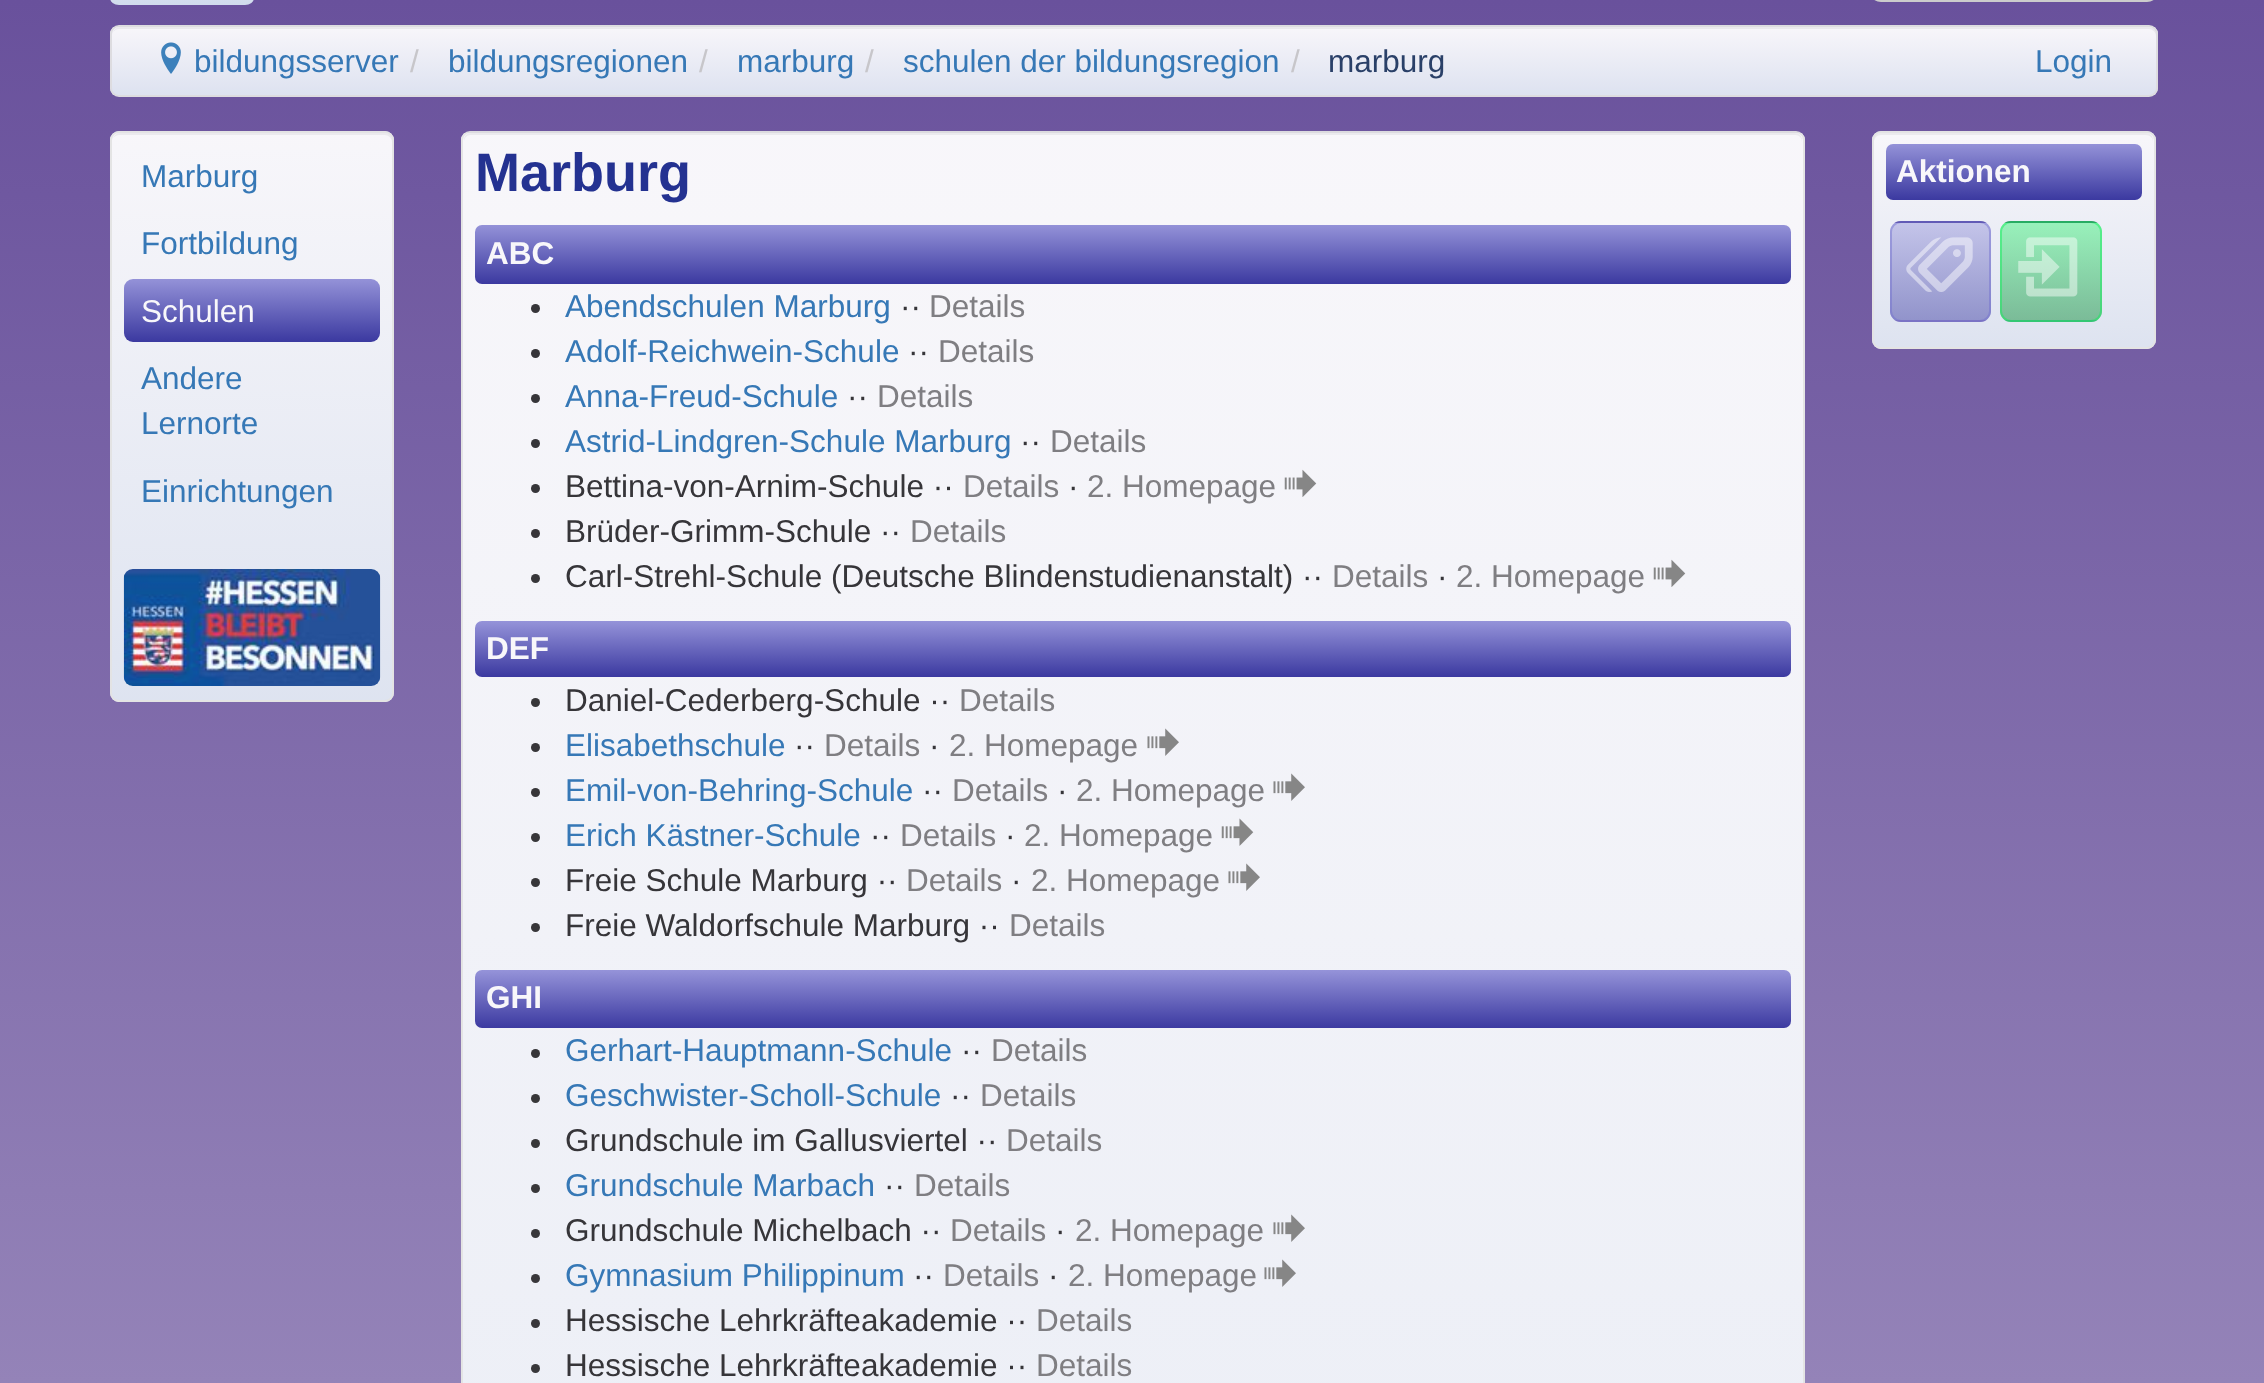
<svg xmlns="http://www.w3.org/2000/svg" width="2264" height="1383">
<defs>
<linearGradient id="g1" gradientUnits="userSpaceOnUse" x1="0" y1="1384" x2="0" y2="0"><stop offset="0" stop-color="#9483b8"/><stop offset="1" stop-color="#69519c"/></linearGradient>
<linearGradient id="g2" gradientUnits="userSpaceOnUse" x1="110" y1="4.5" x2="110" y2="-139"><stop offset="0" stop-color="#d1dced"/><stop offset="1" stop-color="#fff"/></linearGradient>
<clipPath id="clip1"><rect x="110" y="25" width="2048" height="72" rx="9"/></clipPath>
<linearGradient id="g3" gradientUnits="userSpaceOnUse" x1="113" y1="95" x2="113" y2="27"><stop offset="0" stop-color="#dde2f0"/><stop offset="1" stop-color="#f8f6fa"/></linearGradient>
<clipPath id="clip2"><rect x="110" y="131" width="284" height="571" rx="9"/></clipPath>
<linearGradient id="g4" gradientUnits="userSpaceOnUse" x1="113" y1="133" x2="113" y2="-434"><stop offset="0" stop-color="#dde3f0"/><stop offset="1" stop-color="#f8f7fa"/></linearGradient>
<linearGradient id="g5" gradientUnits="userSpaceOnUse" x1="113" y1="700" x2="113" y2="133"><stop offset="0" stop-color="#e3eaf4" stop-opacity="0.95"/><stop offset="1" stop-color="#fff" stop-opacity="0.95"/></linearGradient>
<linearGradient id="g6" gradientUnits="userSpaceOnUse" x1="113" y1="1267" x2="113" y2="700"><stop offset="0" stop-color="#dee4f0"/><stop offset="1" stop-color="#f9f8fb"/></linearGradient>
<linearGradient id="g7" gradientUnits="userSpaceOnUse" x1="124" y1="342" x2="124" y2="279"><stop offset="0" stop-color="#3b39a0"/><stop offset="1" stop-color="#9492d8"/></linearGradient>
<clipPath id="clip3"><rect x="461" y="131" width="1344" height="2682" rx="9"/></clipPath>
<linearGradient id="g8" gradientUnits="userSpaceOnUse" x1="464" y1="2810" x2="464" y2="133"><stop offset="0" stop-color="#e3eaf4" stop-opacity="0.95"/><stop offset="1" stop-color="#fff" stop-opacity="0.95"/></linearGradient>
<linearGradient id="g9" gradientUnits="userSpaceOnUse" x1="475" y1="284" x2="475" y2="225"><stop offset="0" stop-color="#3b39a0"/><stop offset="1" stop-color="#9492d8"/></linearGradient>
<linearGradient id="g10" gradientUnits="userSpaceOnUse" x1="475" y1="677" x2="475" y2="621"><stop offset="0" stop-color="#3b39a0"/><stop offset="1" stop-color="#9593d9"/></linearGradient>
<linearGradient id="g11" gradientUnits="userSpaceOnUse" x1="475" y1="1028" x2="475" y2="970"><stop offset="0" stop-color="#3c3aa1"/><stop offset="1" stop-color="#9593d9"/></linearGradient>
<clipPath id="clip4"><rect x="1872" y="131" width="284" height="218" rx="9"/></clipPath>
<linearGradient id="g12" gradientUnits="userSpaceOnUse" x1="1874" y1="133" x2="1874" y2="-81"><stop offset="0" stop-color="#dde3f0"/><stop offset="1" stop-color="#f8f7fa"/></linearGradient>
<linearGradient id="g13" gradientUnits="userSpaceOnUse" x1="1874" y1="347" x2="1874" y2="133"><stop offset="0" stop-color="#e3eaf4" stop-opacity="0.95"/><stop offset="1" stop-color="#fff" stop-opacity="0.95"/></linearGradient>
<linearGradient id="g14" gradientUnits="userSpaceOnUse" x1="1874" y1="560" x2="1874" y2="347"><stop offset="0" stop-color="#dde3f0"/><stop offset="1" stop-color="#f8f7fa"/></linearGradient>
<linearGradient id="g15" gradientUnits="userSpaceOnUse" x1="1886" y1="200" x2="1886" y2="144"><stop offset="0" stop-color="#3b39a0"/><stop offset="1" stop-color="#9492d8"/></linearGradient>
<clipPath id="clip5"><rect x="1890" y="221" width="101" height="101" rx="11"/></clipPath>
<linearGradient id="g16" gradientUnits="userSpaceOnUse" x1="1892" y1="223" x2="1892" y2="126"><stop offset="0" stop-color="#5549a0"/><stop offset="1" stop-color="#8276bc"/></linearGradient>
<linearGradient id="g17" gradientUnits="userSpaceOnUse" x1="1892" y1="320" x2="1892" y2="223"><stop offset="0" stop-color="#3837a0" stop-opacity="0.47"/><stop offset="1" stop-color="#9695db" stop-opacity="0.47"/></linearGradient>
<linearGradient id="g18" gradientUnits="userSpaceOnUse" x1="1892" y1="416" x2="1892" y2="320"><stop offset="0" stop-color="#574ba1"/><stop offset="1" stop-color="#8478bd"/></linearGradient>
<clipPath id="clip6"><rect x="2000" y="221" width="102" height="101" rx="11"/></clipPath>
<linearGradient id="g19" gradientUnits="userSpaceOnUse" x1="2003" y1="223" x2="2003" y2="126"><stop offset="0" stop-color="#3f716d"/><stop offset="1" stop-color="#56a38d"/></linearGradient>
<linearGradient id="g20" gradientUnits="userSpaceOnUse" x1="2003" y1="320" x2="2003" y2="223"><stop offset="0" stop-color="#088c34" stop-opacity="0.47"/><stop offset="1" stop-color="#39f478" stop-opacity="0.47"/></linearGradient>
<linearGradient id="g21" gradientUnits="userSpaceOnUse" x1="2003" y1="416" x2="2003" y2="320"><stop offset="0" stop-color="#40736e"/><stop offset="1" stop-color="#57a58e"/></linearGradient>
</defs>
<rect width="100%" height="100%" fill="#fff"/>
<rect width="2264" height="1383" fill="url(#g1)"/>
<rect x="110" y="-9" width="144" height="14" rx="9" fill="url(#g2)"/>
<rect x="1873" y="-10" width="282" height="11" rx="8" fill="none" stroke="#ccc" stroke-width="2"/>
<g clip-path="url(#clip1)">
<rect x="110" y="27" width="2048" height="68" fill="url(#g3)"/>
</g>
<path d="M119 29h2030c3 0 7 3 7 7v-2c0-4-3-7-7-7h-2029c-3 0-6 2-7 5c2-2 4-3 6-3z" fill="#0504080d"/>
<rect x="111" y="26" width="2046" height="70" rx="8" fill="none" stroke="#dddce0" stroke-width="2"/>
<image x="161" y="42" width="20" height="32" href="media/1.png"/>
<text x="194" y="72" style="font-family:Liberation Sans;font-size:31.5px;fill:#3678b6">bildungsserver</text>
<text x="410" y="72" style="font-family:Liberation Sans;font-size:31.5px;fill:#c7c6ca">/</text>
<text x="448" y="72" style="font-family:Liberation Sans;font-size:31.5px;fill:#3678b6">bildungsregionen</text>
<text x="699" y="72" style="font-family:Liberation Sans;font-size:31.5px;fill:#c7c6ca">/</text>
<text x="737" y="72" style="font-family:Liberation Sans;font-size:31.5px;fill:#3678b6">marburg</text>
<text x="865" y="72" style="font-family:Liberation Sans;font-size:31.5px;fill:#c7c6ca">/</text>
<text x="903" y="72" style="font-family:Liberation Sans;font-size:31.5px;fill:#3678b6">schulen der bildungsregion</text>
<text x="1291" y="72" style="font-family:Liberation Sans;font-size:31.5px;fill:#c7c6ca">/</text>
<text x="1328" y="72" style="font-family:Liberation Sans;font-size:31.5px;fill:#2a4068">marburg</text>
<text x="2035" y="72" style="font-family:Liberation Sans;font-size:31.5px;fill:#3678b6">Login</text>
<g clip-path="url(#clip2)">
<rect x="110" y="131" width="284" height="2" fill="url(#g4)"/>
<rect x="110" y="133" width="284" height="567" fill="url(#g5)"/>
<rect x="110" y="700" width="284" height="2" fill="url(#g6)"/>
</g>
<path d="M119 135h266c3 0 7 3 7 7v-2c0-4-3-7-7-7h-265c-3 0-6 2-7 5c2-2 4-3 6-3z" fill="#ebeaee"/>
<rect x="111" y="132" width="282" height="569" rx="8" fill="none" stroke="#e3e3e3f2" stroke-width="2"/>
<text x="141" y="187" style="font-family:Liberation Sans;font-size:31.5px;fill:#3678b6">Marburg</text>
<text x="141" y="254" style="font-family:Liberation Sans;font-size:31.5px;fill:#3678b6">Fortbildung</text>
<rect x="124" y="279" width="256" height="63" rx="9" fill="url(#g7)"/>
<text x="141" y="322" style="font-family:Liberation Sans;font-size:31.5px;fill:#f8f7fa">Schulen</text>
<text x="141" y="389" style="font-family:Liberation Sans;font-size:31.5px;fill:#3678b6">Andere</text>
<text x="141" y="434" style="font-family:Liberation Sans;font-size:31.5px;fill:#3678b6">Lernorte</text>
<text x="141" y="502" style="font-family:Liberation Sans;font-size:31.5px;fill:#3678b6">Einrichtungen</text>
<image x="123" y="569" width="258" height="117" href="media/2.png"/>
<g clip-path="url(#clip3)">
<rect x="461" y="133" width="1344" height="1250" fill="url(#g8)"/>
</g>
<path d="M470 135h1326c3 0 6 3 6 7v-2c0-4-3-7-7-7h-1324c-4 0-7 3-7 7v2c0-4 3-7 6-7z" fill="#ebeaee"/>
<rect x="462" y="132" width="1342" height="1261" rx="8" fill="none" stroke="#e3e3e3f2" stroke-width="2"/>
<text x="475" y="191" style="font-family:Liberation Sans;font-size:54px;font-weight:bold;fill:#243291">Marburg</text>
<rect x="475" y="225" width="1316" height="59" rx="7" fill="url(#g9)"/>
<text x="486" y="264" style="font-family:Liberation Sans;font-size:31.5px;font-weight:bold;fill:#f8f7fa">ABC</text>
<circle cx="535.5" cy="308.5" r="4.5" fill="#363539"/>
<text x="565" y="317" style="font-family:Liberation Sans;font-size:31.5px;fill:#3678b6">Abendschulen Marburg</text>
<text x="900" y="317" style="font-family:Liberation Sans;font-size:31.5px;fill:#363539">··</text>
<text x="929" y="317" style="font-family:Liberation Sans;font-size:31.5px;fill:#7f7e82">Details</text>
<circle cx="535.5" cy="353.5" r="4.5" fill="#363539"/>
<text x="565" y="362" style="font-family:Liberation Sans;font-size:31.5px;fill:#3678b6">Adolf-Reichwein-Schule</text>
<text x="908" y="362" style="font-family:Liberation Sans;font-size:31.5px;fill:#363539">··</text>
<text x="938" y="362" style="font-family:Liberation Sans;font-size:31.5px;fill:#7f7e82">Details</text>
<circle cx="535.5" cy="398.5" r="4.5" fill="#363539"/>
<text x="565" y="407" style="font-family:Liberation Sans;font-size:31.5px;fill:#3678b6">Anna-Freud-Schule</text>
<text x="847" y="407" style="font-family:Liberation Sans;font-size:31.5px;fill:#363539">··</text>
<text x="877" y="407" style="font-family:Liberation Sans;font-size:31.5px;fill:#7f7e82">Details</text>
<circle cx="535.5" cy="443.5" r="4.5" fill="#363539"/>
<text x="565" y="452" style="font-family:Liberation Sans;font-size:31.5px;fill:#3678b6">Astrid-Lindgren-Schule Marburg</text>
<text x="1020" y="452" style="font-family:Liberation Sans;font-size:31.5px;fill:#363539">··</text>
<text x="1050" y="452" style="font-family:Liberation Sans;font-size:31.5px;fill:#7f7e82">Details</text>
<circle cx="535.5" cy="488.5" r="4.5" fill="#363539"/>
<text x="565" y="497" style="font-family:Liberation Sans;font-size:31.5px;fill:#363539">Bettina-von-Arnim-Schule ··</text>
<text x="963" y="497" style="font-family:Liberation Sans;font-size:31.5px;fill:#7f7e82">Details</text>
<text x="1068" y="497" style="font-family:Liberation Sans;font-size:31.5px;fill:#363539">·</text>
<text x="1087" y="497" style="font-family:Liberation Sans;font-size:31.5px;fill:#7f7e82">2. Homepage</text>
<image x="1284" y="469" width="33" height="28" href="media/3.png"/>
<circle cx="535.5" cy="533.5" r="4.5" fill="#373539"/>
<text x="565" y="542" style="font-family:Liberation Sans;font-size:31.5px;fill:#363539">Brüder-Grimm-Schule ··</text>
<text x="910" y="542" style="font-family:Liberation Sans;font-size:31.5px;fill:#7f7e82">Details</text>
<circle cx="535.5" cy="578.5" r="4.5" fill="#373639"/>
<text x="565" y="587" style="font-family:Liberation Sans;font-size:31.5px;fill:#363539">Carl-Strehl-Schule (Deutsche Blindenstudienanstalt) ··</text>
<text x="1332" y="587" style="font-family:Liberation Sans;font-size:31.5px;fill:#7f7e82">Details</text>
<text x="1437" y="587" style="font-family:Liberation Sans;font-size:31.5px;fill:#363539">·</text>
<text x="1456" y="587" style="font-family:Liberation Sans;font-size:31.5px;fill:#7f7e82">2. Homepage</text>
<image x="1653" y="559" width="33" height="28" href="media/4.png"/>
<rect x="475" y="621" width="1316" height="56" rx="7" fill="url(#g10)"/>
<text x="486" y="659" style="font-family:Liberation Sans;font-size:31.5px;font-weight:bold;fill:#f8f7fa">DEF</text>
<circle cx="535.5" cy="702.5" r="4.5" fill="#373639"/>
<text x="565" y="711" style="font-family:Liberation Sans;font-size:31.5px;fill:#363539">Daniel-Cederberg-Schule ··</text>
<text x="959" y="711" style="font-family:Liberation Sans;font-size:31.5px;fill:#7f7e82">Details</text>
<circle cx="535.5" cy="747.5" r="4.5" fill="#373639"/>
<text x="565" y="756" style="font-family:Liberation Sans;font-size:31.5px;fill:#3678b6">Elisabethschule</text>
<text x="794" y="756" style="font-family:Liberation Sans;font-size:31.5px;fill:#363539">··</text>
<text x="824" y="756" style="font-family:Liberation Sans;font-size:31.5px;fill:#7f7e82">Details</text>
<text x="929" y="756" style="font-family:Liberation Sans;font-size:31.5px;fill:#363539">·</text>
<text x="949" y="756" style="font-family:Liberation Sans;font-size:31.5px;fill:#7f7e82">2. Homepage</text>
<image x="1147" y="728" width="32" height="28" href="media/5.png"/>
<circle cx="535.5" cy="792.5" r="4.5" fill="#373639"/>
<text x="565" y="801" style="font-family:Liberation Sans;font-size:31.5px;fill:#3678b6">Emil-von-Behring-Schule</text>
<text x="922" y="801" style="font-family:Liberation Sans;font-size:31.5px;fill:#363539">··</text>
<text x="952" y="801" style="font-family:Liberation Sans;font-size:31.5px;fill:#7f7e82">Details</text>
<text x="1057" y="801" style="font-family:Liberation Sans;font-size:31.5px;fill:#363539">·</text>
<text x="1076" y="801" style="font-family:Liberation Sans;font-size:31.5px;fill:#7f7e82">2. Homepage</text>
<image x="1273" y="773" width="32" height="28" href="media/6.png"/>
<circle cx="535.5" cy="837.5" r="4.5" fill="#373639"/>
<text x="565" y="846" style="font-family:Liberation Sans;font-size:31.5px;fill:#3678b6">Erich Kästner-Schule</text>
<text x="870" y="846" style="font-family:Liberation Sans;font-size:31.5px;fill:#363539">··</text>
<text x="900" y="846" style="font-family:Liberation Sans;font-size:31.5px;fill:#7f7e82">Details</text>
<text x="1005" y="846" style="font-family:Liberation Sans;font-size:31.5px;fill:#363539">·</text>
<text x="1024" y="846" style="font-family:Liberation Sans;font-size:31.5px;fill:#7f7e82">2. Homepage</text>
<image x="1221" y="818" width="33" height="28" href="media/7.png"/>
<circle cx="535.5" cy="882.5" r="4.5" fill="#373639"/>
<text x="565" y="891" style="font-family:Liberation Sans;font-size:31.5px;fill:#363539">Freie Schule Marburg ··</text>
<text x="906" y="891" style="font-family:Liberation Sans;font-size:31.5px;fill:#7f7e82">Details</text>
<text x="1011" y="891" style="font-family:Liberation Sans;font-size:31.5px;fill:#363539">·</text>
<text x="1031" y="891" style="font-family:Liberation Sans;font-size:31.5px;fill:#7f7e82">2. Homepage</text>
<image x="1228" y="863" width="32" height="28" href="media/8.png"/>
<circle cx="535.5" cy="927.5" r="4.5" fill="#373639"/>
<text x="565" y="936" style="font-family:Liberation Sans;font-size:31.5px;fill:#363539">Freie Waldorfschule Marburg ··</text>
<text x="1009" y="936" style="font-family:Liberation Sans;font-size:31.5px;fill:#7f7e82">Details</text>
<rect x="475" y="970" width="1316" height="58" rx="7" fill="url(#g11)"/>
<text x="486" y="1008" style="font-family:Liberation Sans;font-size:31.5px;font-weight:bold;fill:#f8f7fa">GHI</text>
<circle cx="535.5" cy="1053.5" r="4.5" fill="#373639"/>
<text x="565" y="1061" style="font-family:Liberation Sans;font-size:31.5px;fill:#3678b6">Gerhart-Hauptmann-Schule</text>
<text x="961" y="1061" style="font-family:Liberation Sans;font-size:31.5px;fill:#363539">··</text>
<text x="991" y="1061" style="font-family:Liberation Sans;font-size:31.5px;fill:#7f7e82">Details</text>
<circle cx="535.5" cy="1098.5" r="4.5" fill="#373739"/>
<text x="565" y="1106" style="font-family:Liberation Sans;font-size:31.5px;fill:#3678b6">Geschwister-Scholl-Schule</text>
<text x="950" y="1106" style="font-family:Liberation Sans;font-size:31.5px;fill:#363539">··</text>
<text x="980" y="1106" style="font-family:Liberation Sans;font-size:31.5px;fill:#7f7e82">Details</text>
<circle cx="535.5" cy="1143.5" r="4.5" fill="#373739"/>
<text x="565" y="1151" style="font-family:Liberation Sans;font-size:31.5px;fill:#363539">Grundschule im Gallusviertel ··</text>
<text x="1006" y="1151" style="font-family:Liberation Sans;font-size:31.5px;fill:#7f7e82">Details</text>
<circle cx="535.5" cy="1188.5" r="4.5" fill="#383739"/>
<text x="565" y="1196" style="font-family:Liberation Sans;font-size:31.5px;fill:#3678b6">Grundschule Marbach</text>
<text x="884" y="1196" style="font-family:Liberation Sans;font-size:31.5px;fill:#363539">··</text>
<text x="914" y="1196" style="font-family:Liberation Sans;font-size:31.5px;fill:#7f7e82">Details</text>
<circle cx="535.5" cy="1233.5" r="4.5" fill="#38373a"/>
<text x="565" y="1241" style="font-family:Liberation Sans;font-size:31.5px;fill:#363539">Grundschule Michelbach ··</text>
<text x="950" y="1241" style="font-family:Liberation Sans;font-size:31.5px;fill:#7f7e82">Details</text>
<text x="1055" y="1241" style="font-family:Liberation Sans;font-size:31.5px;fill:#363539">·</text>
<text x="1075" y="1241" style="font-family:Liberation Sans;font-size:31.5px;fill:#7f7e82">2. Homepage</text>
<image x="1273" y="1214" width="32" height="28" href="media/9.png"/>
<circle cx="535.5" cy="1278.5" r="4.5" fill="#38373a"/>
<text x="565" y="1286" style="font-family:Liberation Sans;font-size:31.5px;fill:#3678b6">Gymnasium Philippinum</text>
<text x="913" y="1286" style="font-family:Liberation Sans;font-size:31.5px;fill:#363539">··</text>
<text x="943" y="1286" style="font-family:Liberation Sans;font-size:31.5px;fill:#7f7e82">Details</text>
<text x="1048" y="1286" style="font-family:Liberation Sans;font-size:31.5px;fill:#363539">·</text>
<text x="1068" y="1286" style="font-family:Liberation Sans;font-size:31.5px;fill:#7f7e82">2. Homepage</text>
<image x="1264" y="1259" width="32" height="28" href="media/10.png"/>
<circle cx="535.5" cy="1323.5" r="4.5" fill="#38373a"/>
<text x="565" y="1331" style="font-family:Liberation Sans;font-size:31.5px;fill:#363539">Hessische Lehrkräfteakademie ··</text>
<text x="1036" y="1331" style="font-family:Liberation Sans;font-size:31.5px;fill:#7f7e82">Details</text>
<circle cx="535.5" cy="1368.5" r="4.5" fill="#38373a"/>
<text x="565" y="1376" style="font-family:Liberation Sans;font-size:31.5px;fill:#363539">Hessische Lehrkräfteakademie ··</text>
<text x="1036" y="1376" style="font-family:Liberation Sans;font-size:31.5px;fill:#7f7e82">Details</text>
<g clip-path="url(#clip4)">
<rect x="1872" y="131" width="284" height="2" fill="url(#g12)"/>
<rect x="1872" y="133" width="284" height="214" fill="url(#g13)"/>
<rect x="1872" y="347" width="284" height="2" fill="url(#g14)"/>
</g>
<path d="M1881 135h265c4 0 7 3 7 7v-2c0-4-3-7-7-7h-265c-4 0-7 3-7 7v2c0-4 3-7 7-7z" fill="#ebeaee"/>
<rect x="1873" y="132" width="282" height="216" rx="8" fill="none" stroke="#e3e3e3f2" stroke-width="2"/>
<rect x="1886" y="144" width="256" height="56" rx="7" fill="url(#g15)"/>
<text x="1896" y="182" style="font-family:Liberation Sans;font-size:31.5px;font-weight:bold;fill:#f8f7fa">Aktionen</text>
<g clip-path="url(#clip5)">
<rect x="1890" y="221" width="101" height="2" fill="url(#g16)"/>
<rect x="1890" y="223" width="101" height="97" fill="url(#g17)"/>
<rect x="1890" y="320" width="101" height="2" fill="url(#g18)"/>
</g>
<rect x="1891" y="222" width="99" height="99" rx="10" fill="none" stroke="#706fce78" stroke-width="2"/>
<image x="1906" y="237" width="67" height="55" href="media/11.png"/>
<g clip-path="url(#clip6)">
<rect x="2000" y="221" width="102" height="2" fill="url(#g19)"/>
<rect x="2000" y="223" width="102" height="97" fill="url(#g20)"/>
<rect x="2000" y="320" width="102" height="2" fill="url(#g21)"/>
</g>
<rect x="2001" y="222" width="100" height="99" rx="10" fill="none" stroke="#0ded5878" stroke-width="2"/>
<image x="2018" y="237" width="60" height="60" href="media/12.png"/>
</svg>
